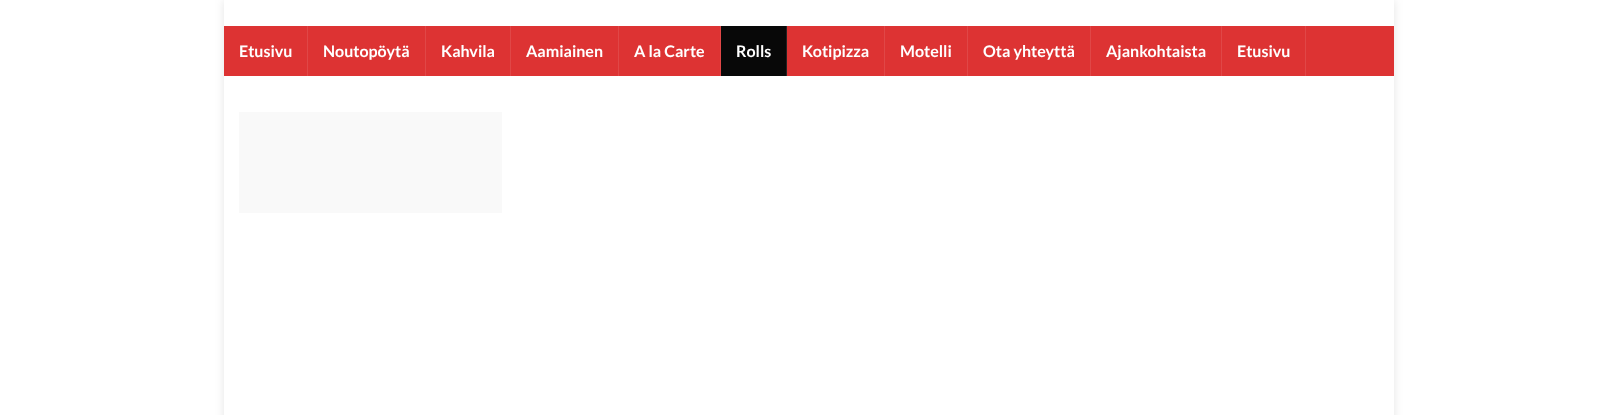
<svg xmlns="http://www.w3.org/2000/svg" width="1618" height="415">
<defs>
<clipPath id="clip1"><path d="M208 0h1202v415h-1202zm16 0h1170v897h-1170z" clip-rule="evenodd"/></clipPath>
</defs>
<rect width="100%" height="100%" fill="#fff"/>
<g clip-path="url(#clip1)">
<rect x="224" width="1170" height="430" fill="#0000001a" filter="blur(5px)"/>
</g>
<rect x="224" y="26" width="1170" height="50" fill="#d33"/>
<rect x="307" y="26" width="1" height="50" fill="#e04747"/>
<text x="239" y="57" style="font-family:Lato;font-size:16px;font-weight:bold;fill:#fff">Etusivu</text>
<rect x="425" y="26" width="1" height="50" fill="#e04747"/>
<text x="323" y="57" style="font-family:Lato;font-size:16px;font-weight:bold;fill:#fff">Noutopöytä</text>
<rect x="510" y="26" width="1" height="50" fill="#e04747"/>
<text x="441" y="57" style="font-family:Lato;font-size:16px;font-weight:bold;fill:#fff">Kahvila</text>
<rect x="618" y="26" width="1" height="50" fill="#e04747"/>
<text x="526" y="57" style="font-family:Lato;font-size:16px;font-weight:bold;fill:#fff">Aamiainen</text>
<rect x="720" y="26" width="1" height="50" fill="#e04747"/>
<text x="634" y="57" style="font-family:Lato;font-size:16px;font-weight:bold;fill:#fff">A la Carte</text>
<rect x="786" y="26" width="1" height="50" fill="#232323"/>
<rect x="721" y="26" width="65" height="50" fill="#080808"/>
<text x="736" y="57" style="font-family:Lato;font-size:16px;font-weight:bold;fill:#fff">Rolls</text>
<rect x="884" y="26" width="1" height="50" fill="#e04747"/>
<text x="802" y="57" style="font-family:Lato;font-size:16px;font-weight:bold;fill:#fff">Kotipizza</text>
<rect x="967" y="26" width="1" height="50" fill="#e04747"/>
<text x="900" y="57" style="font-family:Lato;font-size:16px;font-weight:bold;fill:#fff">Motelli</text>
<rect x="1090" y="26" width="1" height="50" fill="#e04747"/>
<text x="983" y="57" style="font-family:Lato;font-size:16px;font-weight:bold;fill:#fff">Ota yhteyttä</text>
<rect x="1221" y="26" width="1" height="50" fill="#e04747"/>
<text x="1106" y="57" style="font-family:Lato;font-size:16px;font-weight:bold;fill:#fff">Ajankohtaista</text>
<rect x="1305" y="26" width="1" height="50" fill="#e04747"/>
<text x="1237" y="57" style="font-family:Lato;font-size:16px;font-weight:bold;fill:#fff">Etusivu</text>
<rect x="239" y="112" width="263" height="101" fill="#f9f9f9"/>
</svg>
